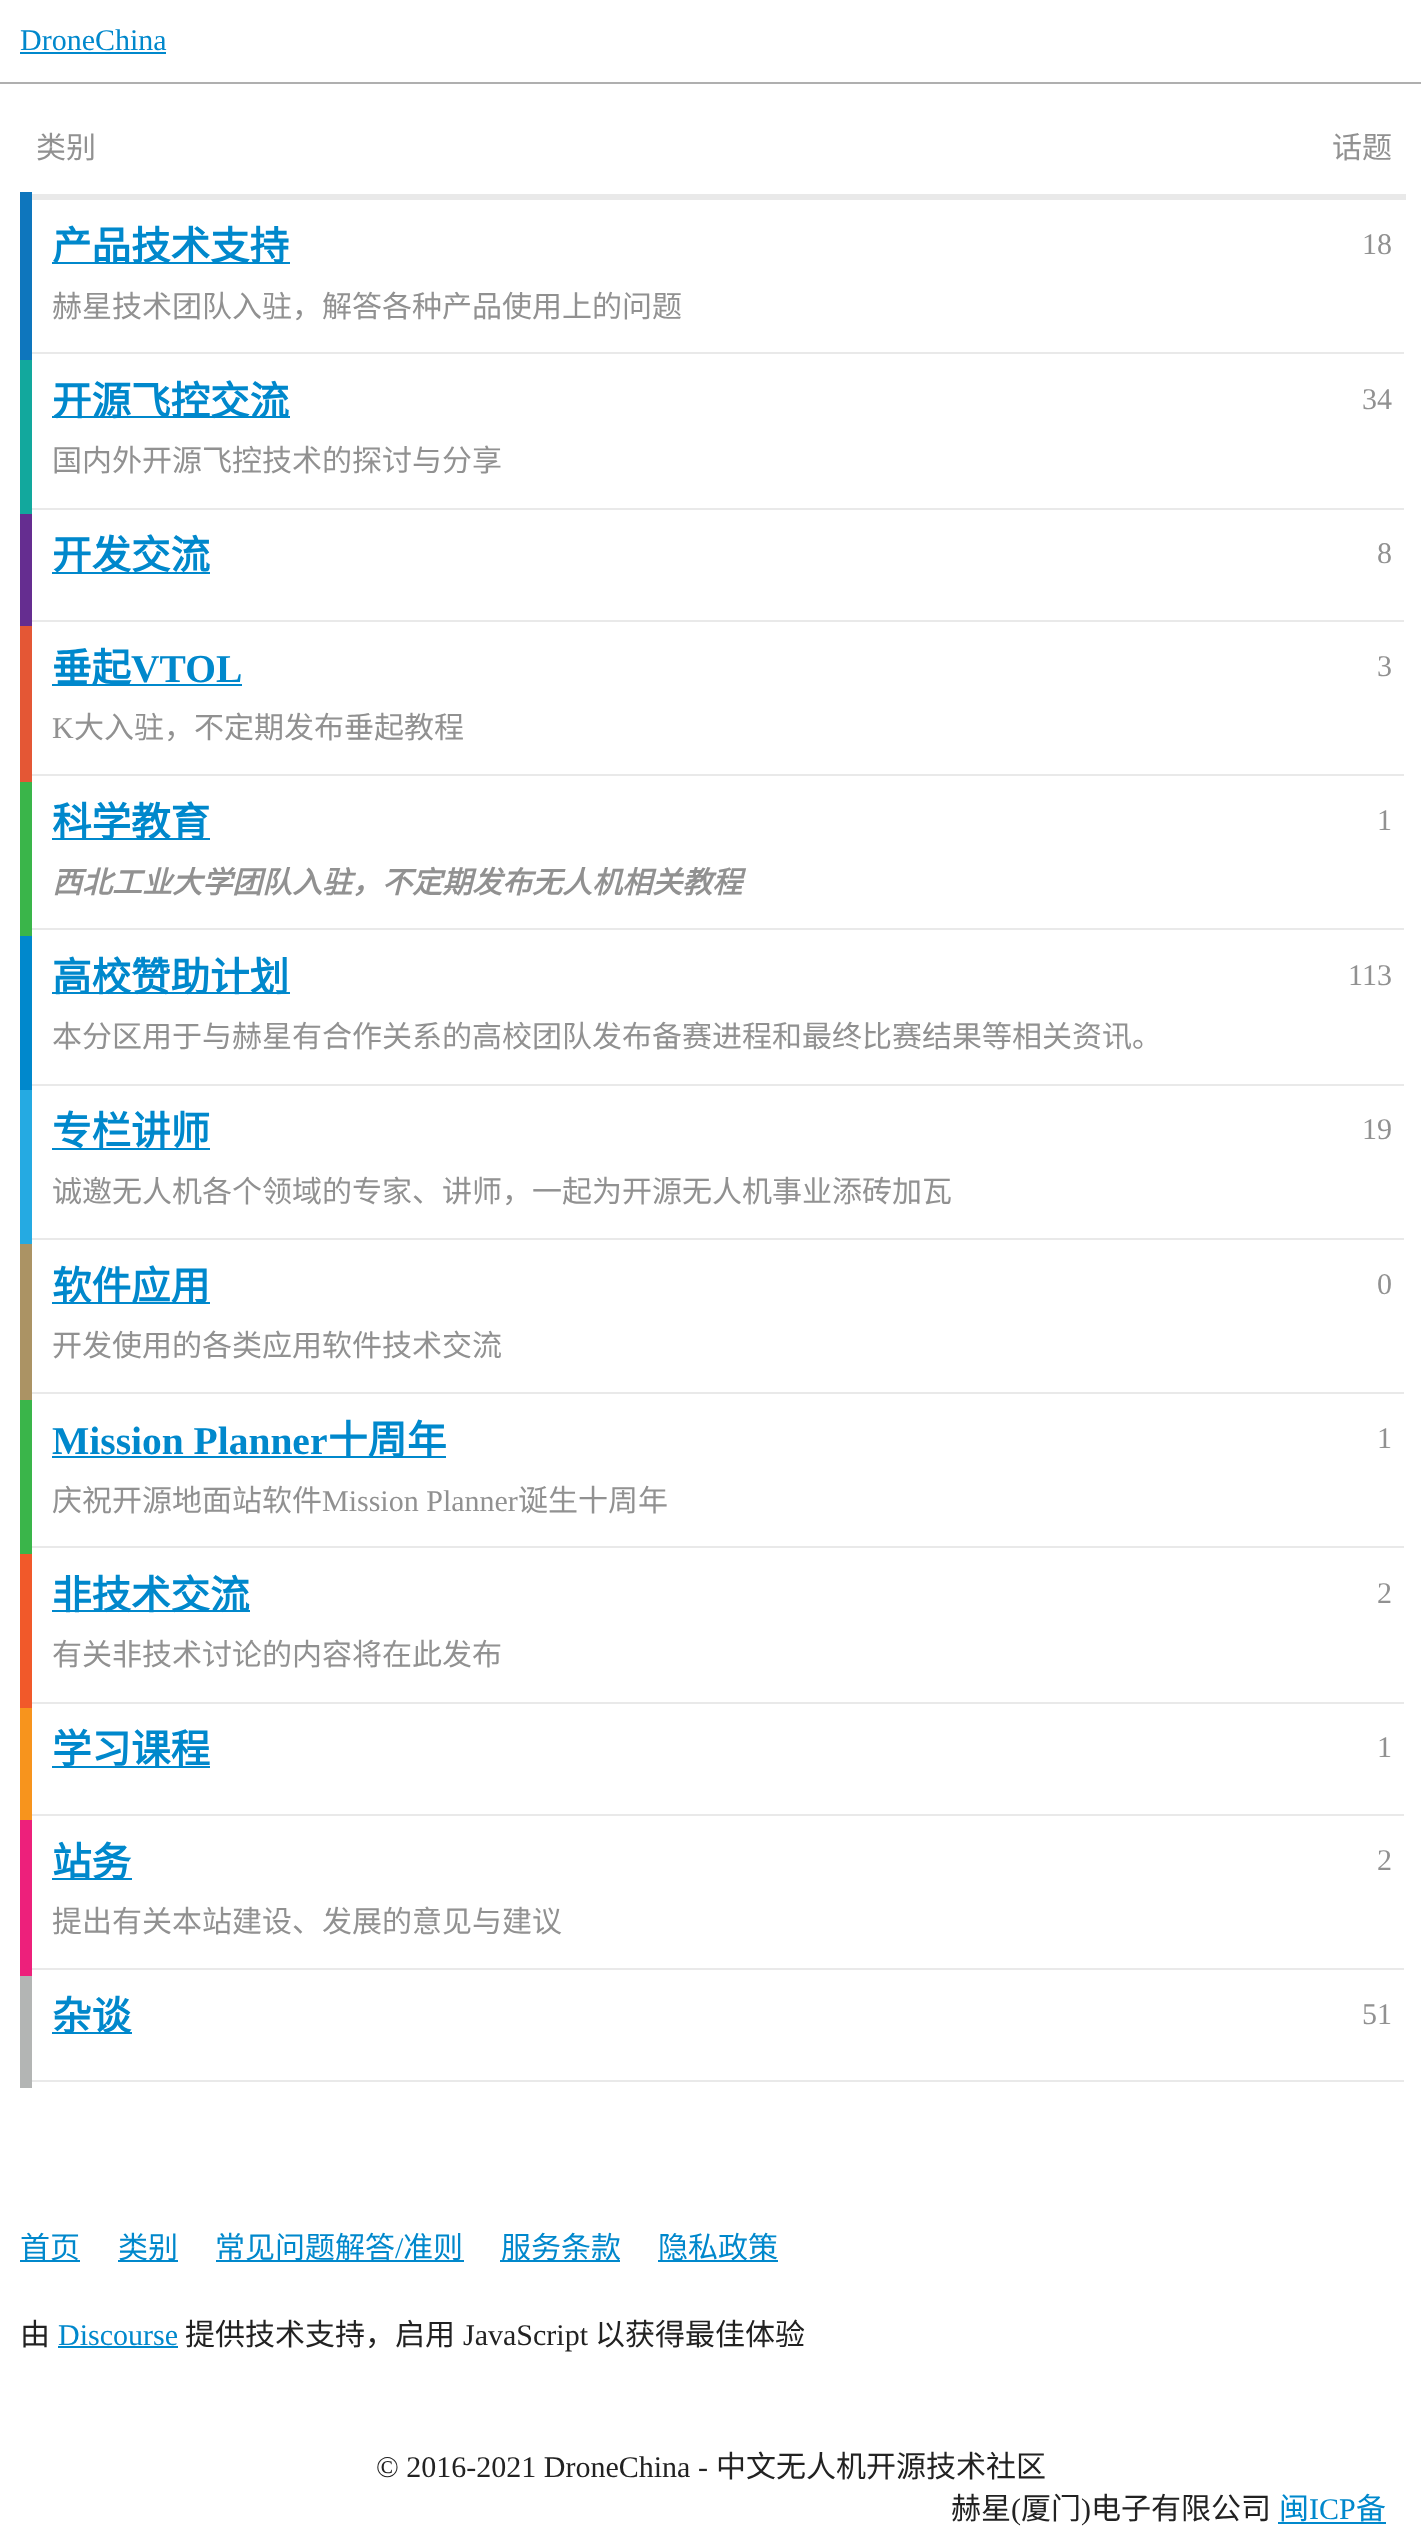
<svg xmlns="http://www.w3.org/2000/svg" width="1421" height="2543">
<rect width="100%" height="100%" fill="#fff"/>
<rect y="82" width="1421" height="2" fill="#afafaf"/>
<text x="20" y="50" style="font-family:Liberation Serif;font-size:30px;fill:#08c">DroneChina</text>
<rect x="20" y="52" width="146" height="2" fill="#08c"/>
<text x="36" y="158" style="font-family:Noto Sans CJK SC;font-size:30px;fill:#919191">类别</text>
<text x="1332" y="158" style="font-family:Noto Sans CJK SC;font-size:30px;fill:#919191">话题</text>
<rect x="24" y="194" width="1382" height="6" fill="#e9e9e9"/>
<rect x="26" y="352" width="1378" height="2" fill="#e9e9e9"/>
<rect x="20" y="192" width="12" height="168" fill="#0e76bd"/>
<rect x="52" y="262" width="238" height="2" fill="#08c"/>
<text x="52" y="260" style="font-family:Noto Sans CJK SC;font-size:39.5px;font-weight:bold;fill:#08c">产品技术支持</text>
<text x="52" y="317" style="font-family:Noto Sans CJK SC;font-size:30px;fill:#919191">赫星技术团队入驻，解答各种产品使用上的问题</text>
<text x="1362" y="254" style="font-family:Liberation Serif;font-size:30px;fill:#919191">18</text>
<rect x="26" y="508" width="1378" height="2" fill="#e9e9e9"/>
<rect x="20" y="360" width="12" height="154" fill="#12a89d"/>
<rect x="52" y="416" width="238" height="2" fill="#08c"/>
<text x="52" y="415" style="font-family:Noto Sans CJK SC;font-size:39.5px;font-weight:bold;fill:#08c">开源飞控交流</text>
<text x="52" y="471" style="font-family:Noto Sans CJK SC;font-size:30px;fill:#919191">国内外开源飞控技术的探讨与分享</text>
<text x="1362" y="409" style="font-family:Liberation Serif;font-size:30px;fill:#919191">34</text>
<rect x="26" y="620" width="1378" height="2" fill="#e9e9e9"/>
<rect x="20" y="514" width="12" height="112" fill="#652d90"/>
<rect x="52" y="572" width="158" height="2" fill="#08c"/>
<text x="52" y="569" style="font-family:Noto Sans CJK SC;font-size:39.5px;font-weight:bold;fill:#08c">开发交流</text>
<text x="1377" y="563" style="font-family:Liberation Serif;font-size:30px;fill:#919191">8</text>
<rect x="26" y="774" width="1378" height="2" fill="#e9e9e9"/>
<rect x="20" y="626" width="12" height="156" fill="#e45735"/>
<rect x="52" y="684" width="190" height="2" fill="#08c"/>
<text x="52" y="682" style="font-family:Noto Sans CJK SC;font-size:39.5px;font-weight:bold;fill:#08c">垂起</text>
<text x="131" y="682" style="font-family:Liberation Serif;font-size:39.5px;font-weight:bold;fill:#08c">VTOL</text>
<text x="52" y="738" style="font-family:Liberation Serif;font-size:30px;fill:#919191">K</text>
<text x="74" y="738" style="font-family:Noto Sans CJK SC;font-size:30px;fill:#919191">大入驻，不定期发布垂起教程</text>
<text x="1377" y="676" style="font-family:Liberation Serif;font-size:30px;fill:#919191">3</text>
<rect x="26" y="928" width="1378" height="2" fill="#e9e9e9"/>
<rect x="20" y="782" width="12" height="154" fill="#3ab54a"/>
<rect x="52" y="838" width="158" height="2" fill="#08c"/>
<text x="52" y="836" style="font-family:Noto Sans CJK SC;font-size:39.5px;font-weight:bold;fill:#08c">科学教育</text>
<text x="52" y="893" style="font-family:Noto Sans CJK SC;font-size:30px;font-weight:bold;font-style:italic;fill:#919191">西北工业大学团队入驻，不定期发布无人机相关教程</text>
<text x="1377" y="830" style="font-family:Liberation Serif;font-size:30px;fill:#919191">1</text>
<rect x="26" y="1084" width="1378" height="2" fill="#e9e9e9"/>
<rect x="20" y="936" width="12" height="154" fill="#08c"/>
<rect x="52" y="992" width="238" height="2" fill="#08c"/>
<text x="52" y="991" style="font-family:Noto Sans CJK SC;font-size:39.5px;font-weight:bold;fill:#08c">高校赞助计划</text>
<text x="52" y="1047" style="font-family:Noto Sans CJK SC;font-size:30px;fill:#919191">本分区用于与赫星有合作关系的高校团队发布备赛进程和最终比赛结果等相关资讯。</text>
<text x="1348" y="985" style="font-family:Liberation Serif;font-size:30px;fill:#919191">113</text>
<rect x="26" y="1238" width="1378" height="2" fill="#e9e9e9"/>
<rect x="20" y="1090" width="12" height="154" fill="#25aae2"/>
<rect x="52" y="1148" width="158" height="2" fill="#08c"/>
<text x="52" y="1145" style="font-family:Noto Sans CJK SC;font-size:39.5px;font-weight:bold;fill:#08c">专栏讲师</text>
<text x="52" y="1202" style="font-family:Noto Sans CJK SC;font-size:30px;fill:#919191">诚邀无人机各个领域的专家、讲师，一起为开源无人机事业添砖加瓦</text>
<text x="1362" y="1139" style="font-family:Liberation Serif;font-size:30px;fill:#919191">19</text>
<rect x="26" y="1392" width="1378" height="2" fill="#e9e9e9"/>
<rect x="20" y="1244" width="12" height="156" fill="#ab9364"/>
<rect x="52" y="1302" width="158" height="2" fill="#08c"/>
<text x="52" y="1300" style="font-family:Noto Sans CJK SC;font-size:39.5px;font-weight:bold;fill:#08c">软件应用</text>
<text x="52" y="1356" style="font-family:Noto Sans CJK SC;font-size:30px;fill:#919191">开发使用的各类应用软件技术交流</text>
<text x="1377" y="1294" style="font-family:Liberation Serif;font-size:30px;fill:#919191">0</text>
<rect x="26" y="1546" width="1378" height="2" fill="#e9e9e9"/>
<rect x="20" y="1400" width="12" height="154" fill="#3ab54a"/>
<text x="52" y="1454" style="font-family:Liberation Serif;font-size:39.5px;font-weight:bold;fill:#08c">Mission Planner</text>
<rect x="52" y="1456" width="394" height="2" fill="#08c"/>
<text x="328" y="1454" style="font-family:Noto Sans CJK SC;font-size:39.5px;font-weight:bold;fill:#08c">十周年</text>
<text x="52" y="1511" style="font-family:Noto Sans CJK SC;font-size:30px;fill:#919191">庆祝开源地面站软件</text>
<text x="322" y="1511" style="font-family:Liberation Serif;font-size:30px;fill:#919191">Mission Planner</text>
<text x="518" y="1511" style="font-family:Noto Sans CJK SC;font-size:30px;fill:#919191">诞生十周年</text>
<text x="1377" y="1448" style="font-family:Liberation Serif;font-size:30px;fill:#919191">1</text>
<rect x="26" y="1702" width="1378" height="2" fill="#e9e9e9"/>
<rect x="20" y="1554" width="12" height="154" fill="#f1592a"/>
<rect x="52" y="1610" width="198" height="2" fill="#08c"/>
<text x="52" y="1609" style="font-family:Noto Sans CJK SC;font-size:39.5px;font-weight:bold;fill:#08c">非技术交流</text>
<text x="52" y="1665" style="font-family:Noto Sans CJK SC;font-size:30px;fill:#919191">有关非技术讨论的内容将在此发布</text>
<text x="1377" y="1603" style="font-family:Liberation Serif;font-size:30px;fill:#919191">2</text>
<rect x="26" y="1814" width="1378" height="2" fill="#e9e9e9"/>
<rect x="20" y="1708" width="12" height="112" fill="#f7941d"/>
<rect x="52" y="1766" width="158" height="2" fill="#08c"/>
<text x="52" y="1763" style="font-family:Noto Sans CJK SC;font-size:39.5px;font-weight:bold;fill:#08c">学习课程</text>
<text x="1377" y="1757" style="font-family:Liberation Serif;font-size:30px;fill:#919191">1</text>
<rect x="26" y="1968" width="1378" height="2" fill="#e9e9e9"/>
<rect x="20" y="1820" width="12" height="156" fill="#ed207b"/>
<rect x="52" y="1878" width="80" height="2" fill="#08c"/>
<text x="52" y="1876" style="font-family:Noto Sans CJK SC;font-size:39.5px;font-weight:bold;fill:#08c">站务</text>
<text x="52" y="1932" style="font-family:Noto Sans CJK SC;font-size:30px;fill:#919191">提出有关本站建设、发展的意见与建议</text>
<text x="1377" y="1870" style="font-family:Liberation Serif;font-size:30px;fill:#919191">2</text>
<rect x="26" y="2080" width="1378" height="2" fill="#e9e9e9"/>
<rect x="20" y="1976" width="12" height="112" fill="#b3b5b4"/>
<rect x="52" y="2032" width="80" height="2" fill="#08c"/>
<text x="52" y="2030" style="font-family:Noto Sans CJK SC;font-size:39.5px;font-weight:bold;fill:#08c">杂谈</text>
<text x="1362" y="2024" style="font-family:Liberation Serif;font-size:30px;fill:#919191">51</text>
<rect x="20" y="2260" width="60" height="2" fill="#08c"/>
<text x="20" y="2258" style="font-family:Noto Sans CJK SC;font-size:30px;fill:#08c">首页</text>
<rect x="118" y="2260" width="60" height="2" fill="#08c"/>
<text x="118" y="2258" style="font-family:Noto Sans CJK SC;font-size:30px;fill:#08c">类别</text>
<rect x="216" y="2260" width="248" height="2" fill="#08c"/>
<text x="215" y="2258" style="font-family:Noto Sans CJK SC;font-size:30px;fill:#08c">常见问题解答</text>
<text x="395" y="2258" style="font-family:Liberation Serif;font-size:30px;fill:#08c">/</text>
<text x="403" y="2258" style="font-family:Noto Sans CJK SC;font-size:30px;fill:#08c">准则</text>
<rect x="500" y="2260" width="120" height="2" fill="#08c"/>
<text x="501" y="2258" style="font-family:Noto Sans CJK SC;font-size:30px;fill:#08c">服务条款</text>
<rect x="658" y="2260" width="120" height="2" fill="#08c"/>
<text x="658" y="2258" style="font-family:Noto Sans CJK SC;font-size:30px;fill:#08c">隐私政策</text>
<text x="20" y="2345" style="font-family:Noto Sans CJK SC;font-size:30px;fill:#222">由</text>
<text x="58" y="2345" style="font-family:Liberation Serif;font-size:30px;fill:#08c">Discourse</text>
<rect x="58" y="2346" width="120" height="2" fill="#08c"/>
<text x="185" y="2345" style="font-family:Noto Sans CJK SC;font-size:30px;fill:#222">提供技术支持，启用</text>
<text x="463" y="2345" style="font-family:Liberation Serif;font-size:30px;fill:#222">JavaScript</text>
<text x="595" y="2345" style="font-family:Noto Sans CJK SC;font-size:30px;fill:#222">以获得最佳体验</text>
<text x="376" y="2477" style="font-family:Liberation Serif;font-size:30px;fill:#222">© 2016-2021 DroneChina -</text>
<text x="716" y="2477" style="font-family:Noto Sans CJK SC;font-size:30px;fill:#222">中文无人机开源技术社区</text>
<text x="951" y="2519" style="font-family:Noto Sans CJK SC;font-size:30px;fill:#222">赫星</text>
<text x="1011" y="2519" style="font-family:Liberation Serif;font-size:30px;fill:#222">(</text>
<text x="1021" y="2519" style="font-family:Noto Sans CJK SC;font-size:30px;fill:#222">厦门</text>
<text x="1081" y="2519" style="font-family:Liberation Serif;font-size:30px;fill:#222">)</text>
<text x="1091" y="2519" style="font-family:Noto Sans CJK SC;font-size:30px;fill:#222">电子有限公司</text>
<text x="1279" y="2519" style="font-family:Noto Sans CJK SC;font-size:30px;fill:#08c">闽</text>
<text x="1309" y="2519" style="font-family:Liberation Serif;font-size:30px;fill:#08c">ICP</text>
<rect x="1278" y="2522" width="108" height="2" fill="#08c"/>
<text x="1356" y="2519" style="font-family:Noto Sans CJK SC;font-size:30px;fill:#08c">备</text>
</svg>
